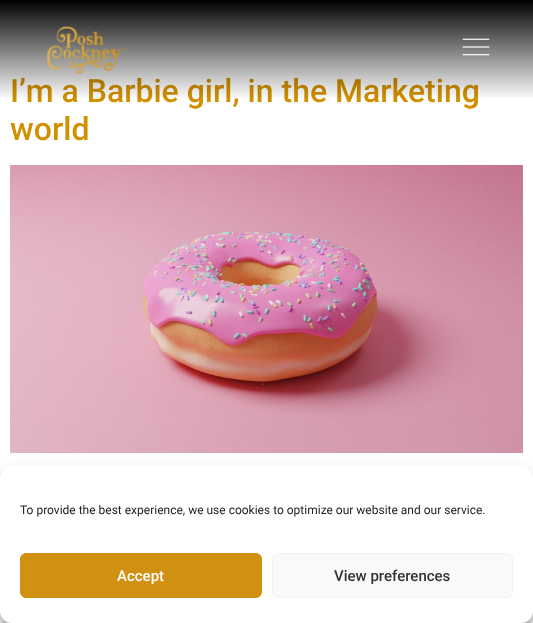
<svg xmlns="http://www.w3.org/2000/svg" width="533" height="623">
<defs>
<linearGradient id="g1" gradientUnits="userSpaceOnUse" x1="267" y1="0" x2="267" y2="100"><stop offset="0" stop-color="#000"/><stop offset="1" stop-color="#000" stop-opacity="0"/></linearGradient>
</defs>
<rect width="100%" height="100%" fill="#fff"/>
<text x="10" y="102" style="font-family:Roboto;font-size:32px;font-weight:500;fill:#d19000">I’m a Barbie girl, in the Marketing</text>
<rect width="533" height="98" fill="url(#g1)"/>
<image x="46" y="26" width="81" height="49" href="media/1.png"/>
<image x="462" y="38" width="28" height="18" href="media/2.png"/>
<text x="10" y="140" style="font-family:Roboto;font-size:32px;font-weight:500;fill:#d19000">world</text>
<image x="10" y="165" width="513" height="288" href="media/3.png"/>
<rect y="472" width="533" height="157" rx="12" fill="#0000003b" filter="blur(3px)"/>
<rect y="476" width="533" height="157" rx="12" fill="#00000030" filter="blur(10px)"/>
<rect y="466" width="533" height="157" rx="12" fill="#fff"/>
<text x="20" y="514" style="font-family:Roboto;font-size:12px;fill:#222">To provide the best experience, we use cookies to optimize our website and our service.</text>
<rect x="20.5" y="553.5" width="241" height="44" rx="5.5" fill="#d19010" stroke="#d19010"/>
<text x="117" y="581" style="font-family:Roboto;font-size:15px;font-weight:500;fill:#fff">Accept</text>
<rect x="272.5" y="553.5" width="240" height="44" rx="5.5" fill="#f9f9f9" stroke="#f2f2f2"/>
<text x="334" y="581" style="font-family:Roboto;font-size:15px;font-weight:500;fill:#333">View preferences</text>
</svg>
